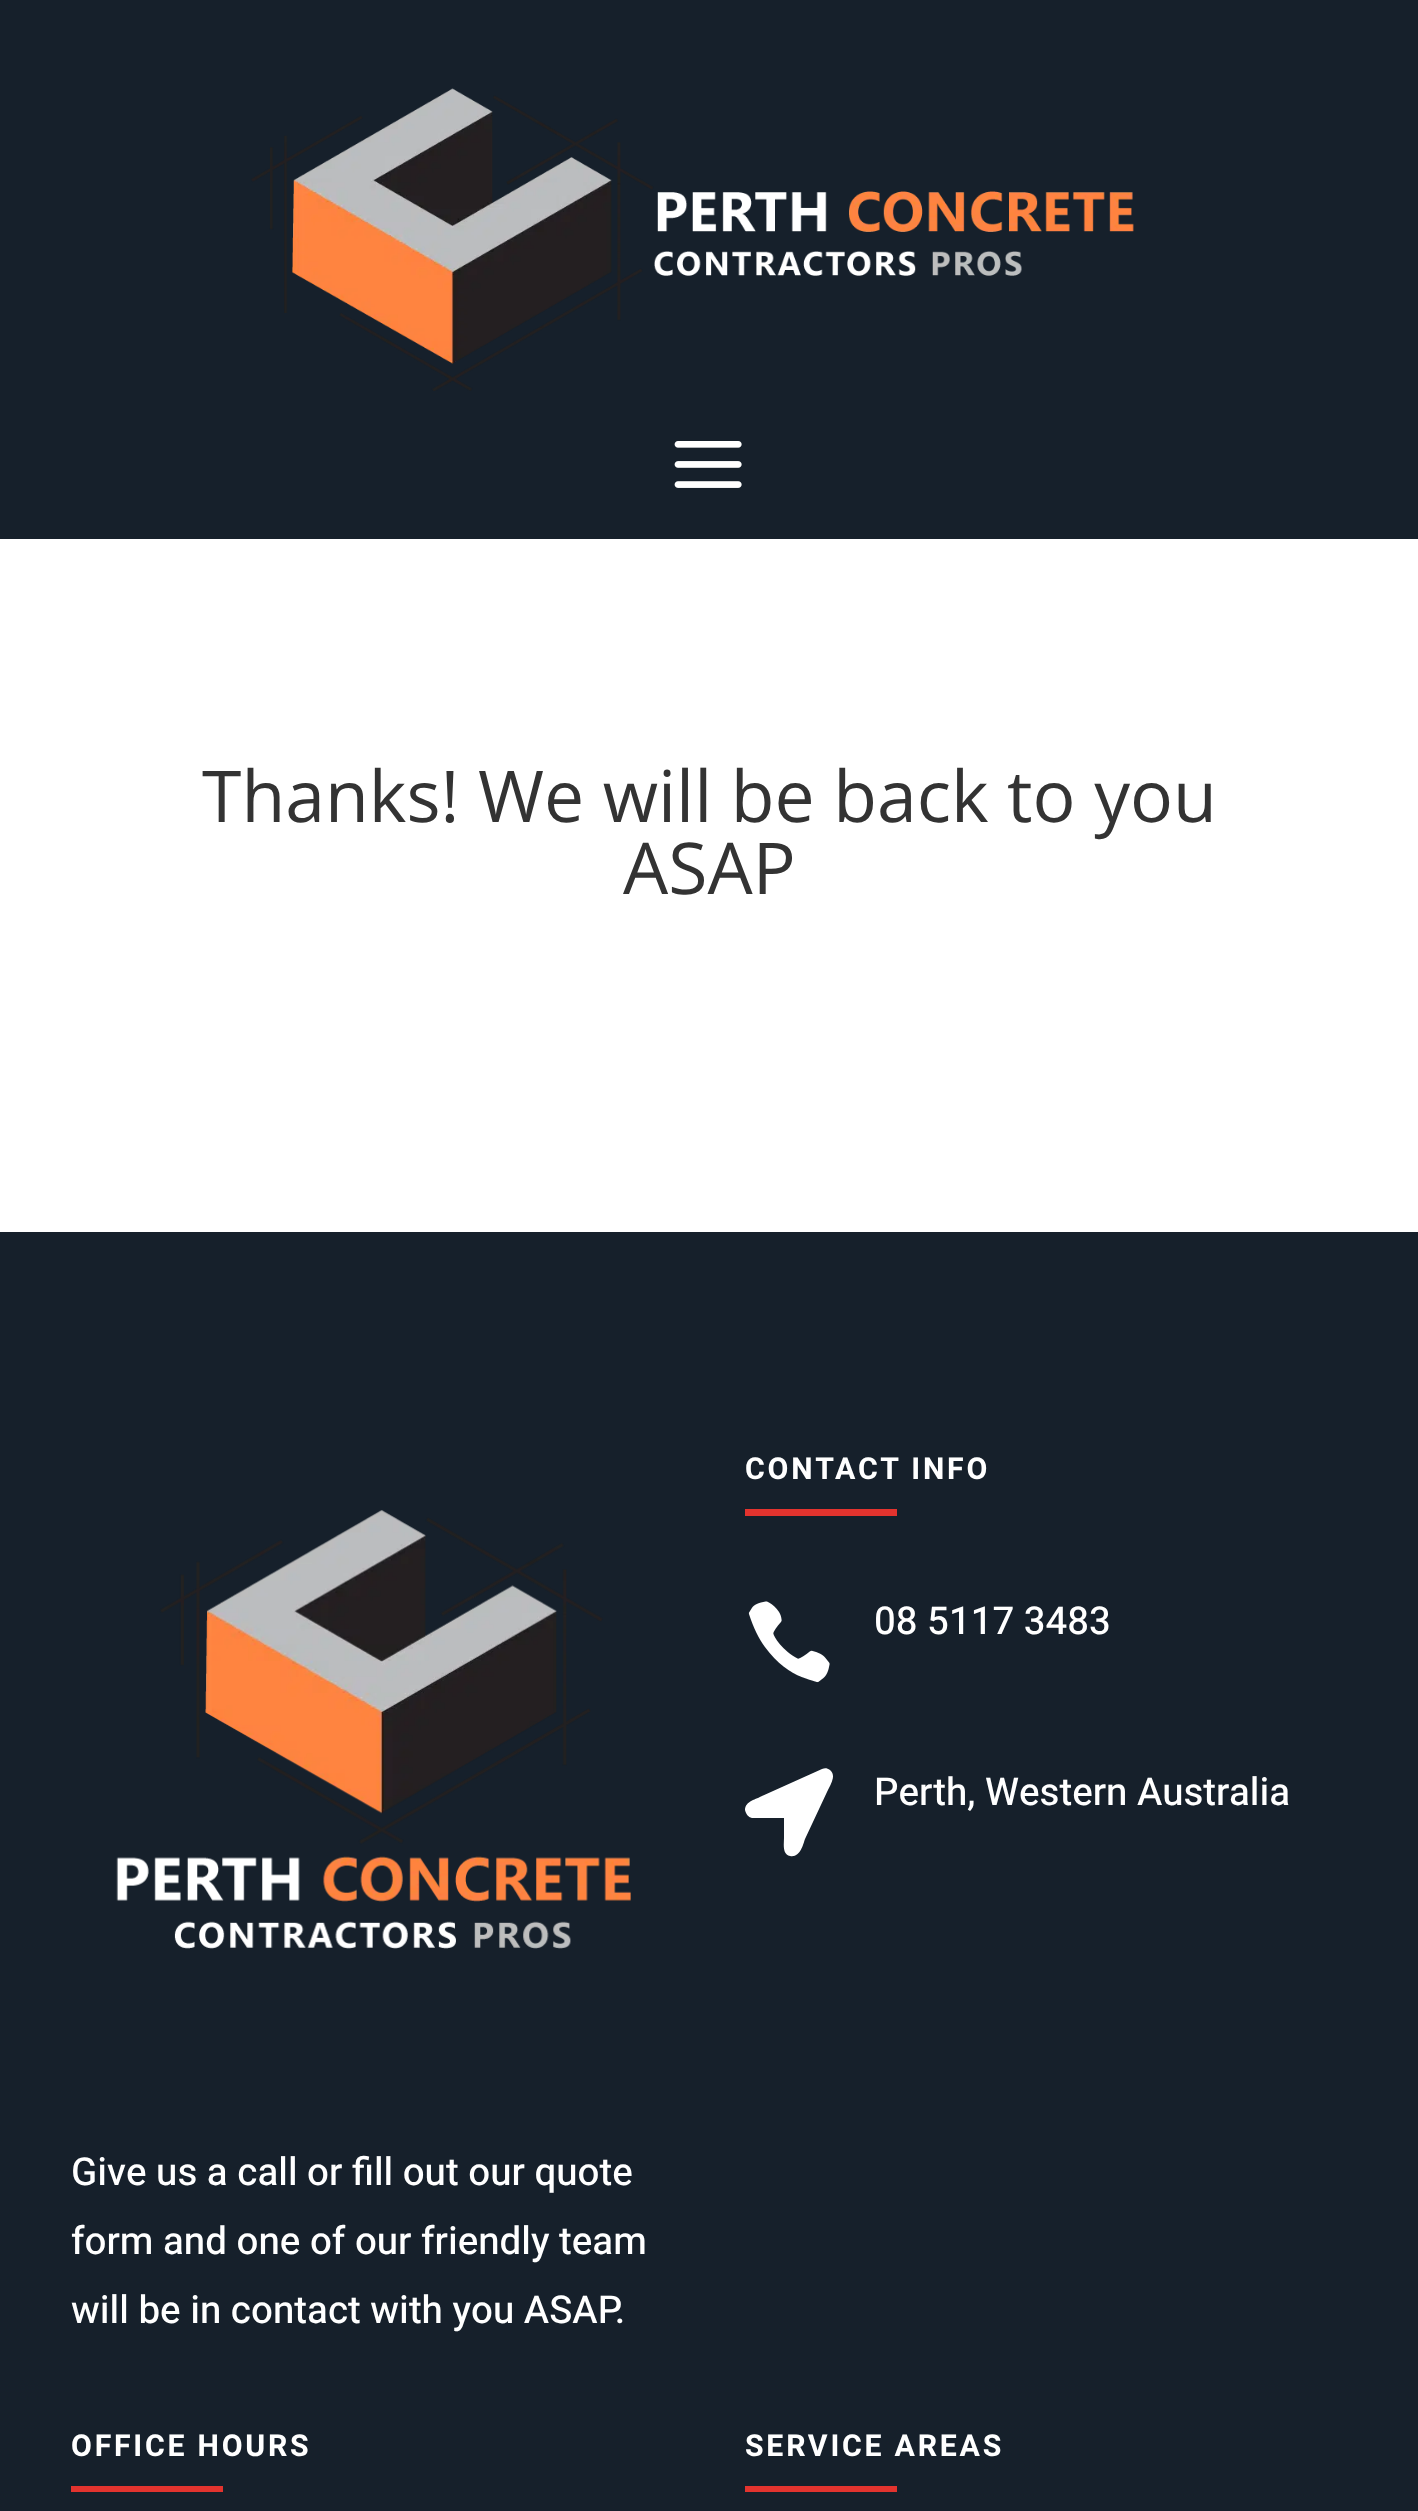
<svg xmlns="http://www.w3.org/2000/svg" width="1418" height="2511">
<rect width="100%" height="100%" fill="#fff"/>
<rect width="1418" height="539" fill="#16202b"/>
<image x="251" y="88" width="883" height="303" href="media/1.png"/>
<image x="674" y="441" width="68" height="47" href="media/2.png"/>
<text x="202" y="822" style="font-family:Open Sans;font-size:71.5px;fill:#333">Thanks! We will be back to you</text>
<text x="623" y="894" style="font-family:Open Sans;font-size:71.5px;fill:#333">ASAP</text>
<rect y="1232" width="1418" height="1279" fill="#16202b"/>
<rect x="745" y="1509" width="152" height="7" fill="#e3332e"/>
<text x="745" y="1479" style="font-family:Heebo;font-size:30.25px;font-weight:bold;letter-spacing:2.75px;fill:#fff">CONTACT INFO</text>
<image x="748" y="1601" width="82" height="82" href="media/3.png"/>
<text x="874" y="1634" style="font-family:Heebo;font-size:38.5px;font-weight:500;fill:#fff">08 5117 3483</text>
<path d="M822 1769c3-1 5-1 8 1c7 6 0 15-3 22l-22 47c-2 6-5 19-15 17c-8-2-6-12-6-18v-20h-32c-4-1-6-4-7-8c0-9 12-11 17-14z" fill="#fff"/>
<text x="874" y="1805" style="font-family:Heebo;font-size:38.5px;font-weight:500;fill:#fff">Perth, Western Australia</text>
<image x="116" y="1510" width="515" height="439" href="media/4.png"/>
<text x="71" y="2185" style="font-family:Heebo;font-size:38.5px;font-weight:500;fill:#fff">Give us a call or fill out our quote</text>
<text x="71" y="2254" style="font-family:Heebo;font-size:38.5px;font-weight:500;fill:#fff">form and one of our friendly team</text>
<text x="71" y="2323" style="font-family:Heebo;font-size:38.5px;font-weight:500;fill:#fff">will be in contact with you ASAP.</text>
<rect x="71" y="2486" width="152" height="6" fill="#e3332e"/>
<text x="71" y="2456" style="font-family:Heebo;font-size:30.25px;font-weight:bold;letter-spacing:2.75px;fill:#fff">OFFICE HOURS</text>
<rect x="745" y="2486" width="152" height="6" fill="#e3332e"/>
<text x="745" y="2456" style="font-family:Heebo;font-size:30.25px;font-weight:bold;letter-spacing:2.75px;fill:#fff">SERVICE AREAS</text>
</svg>
